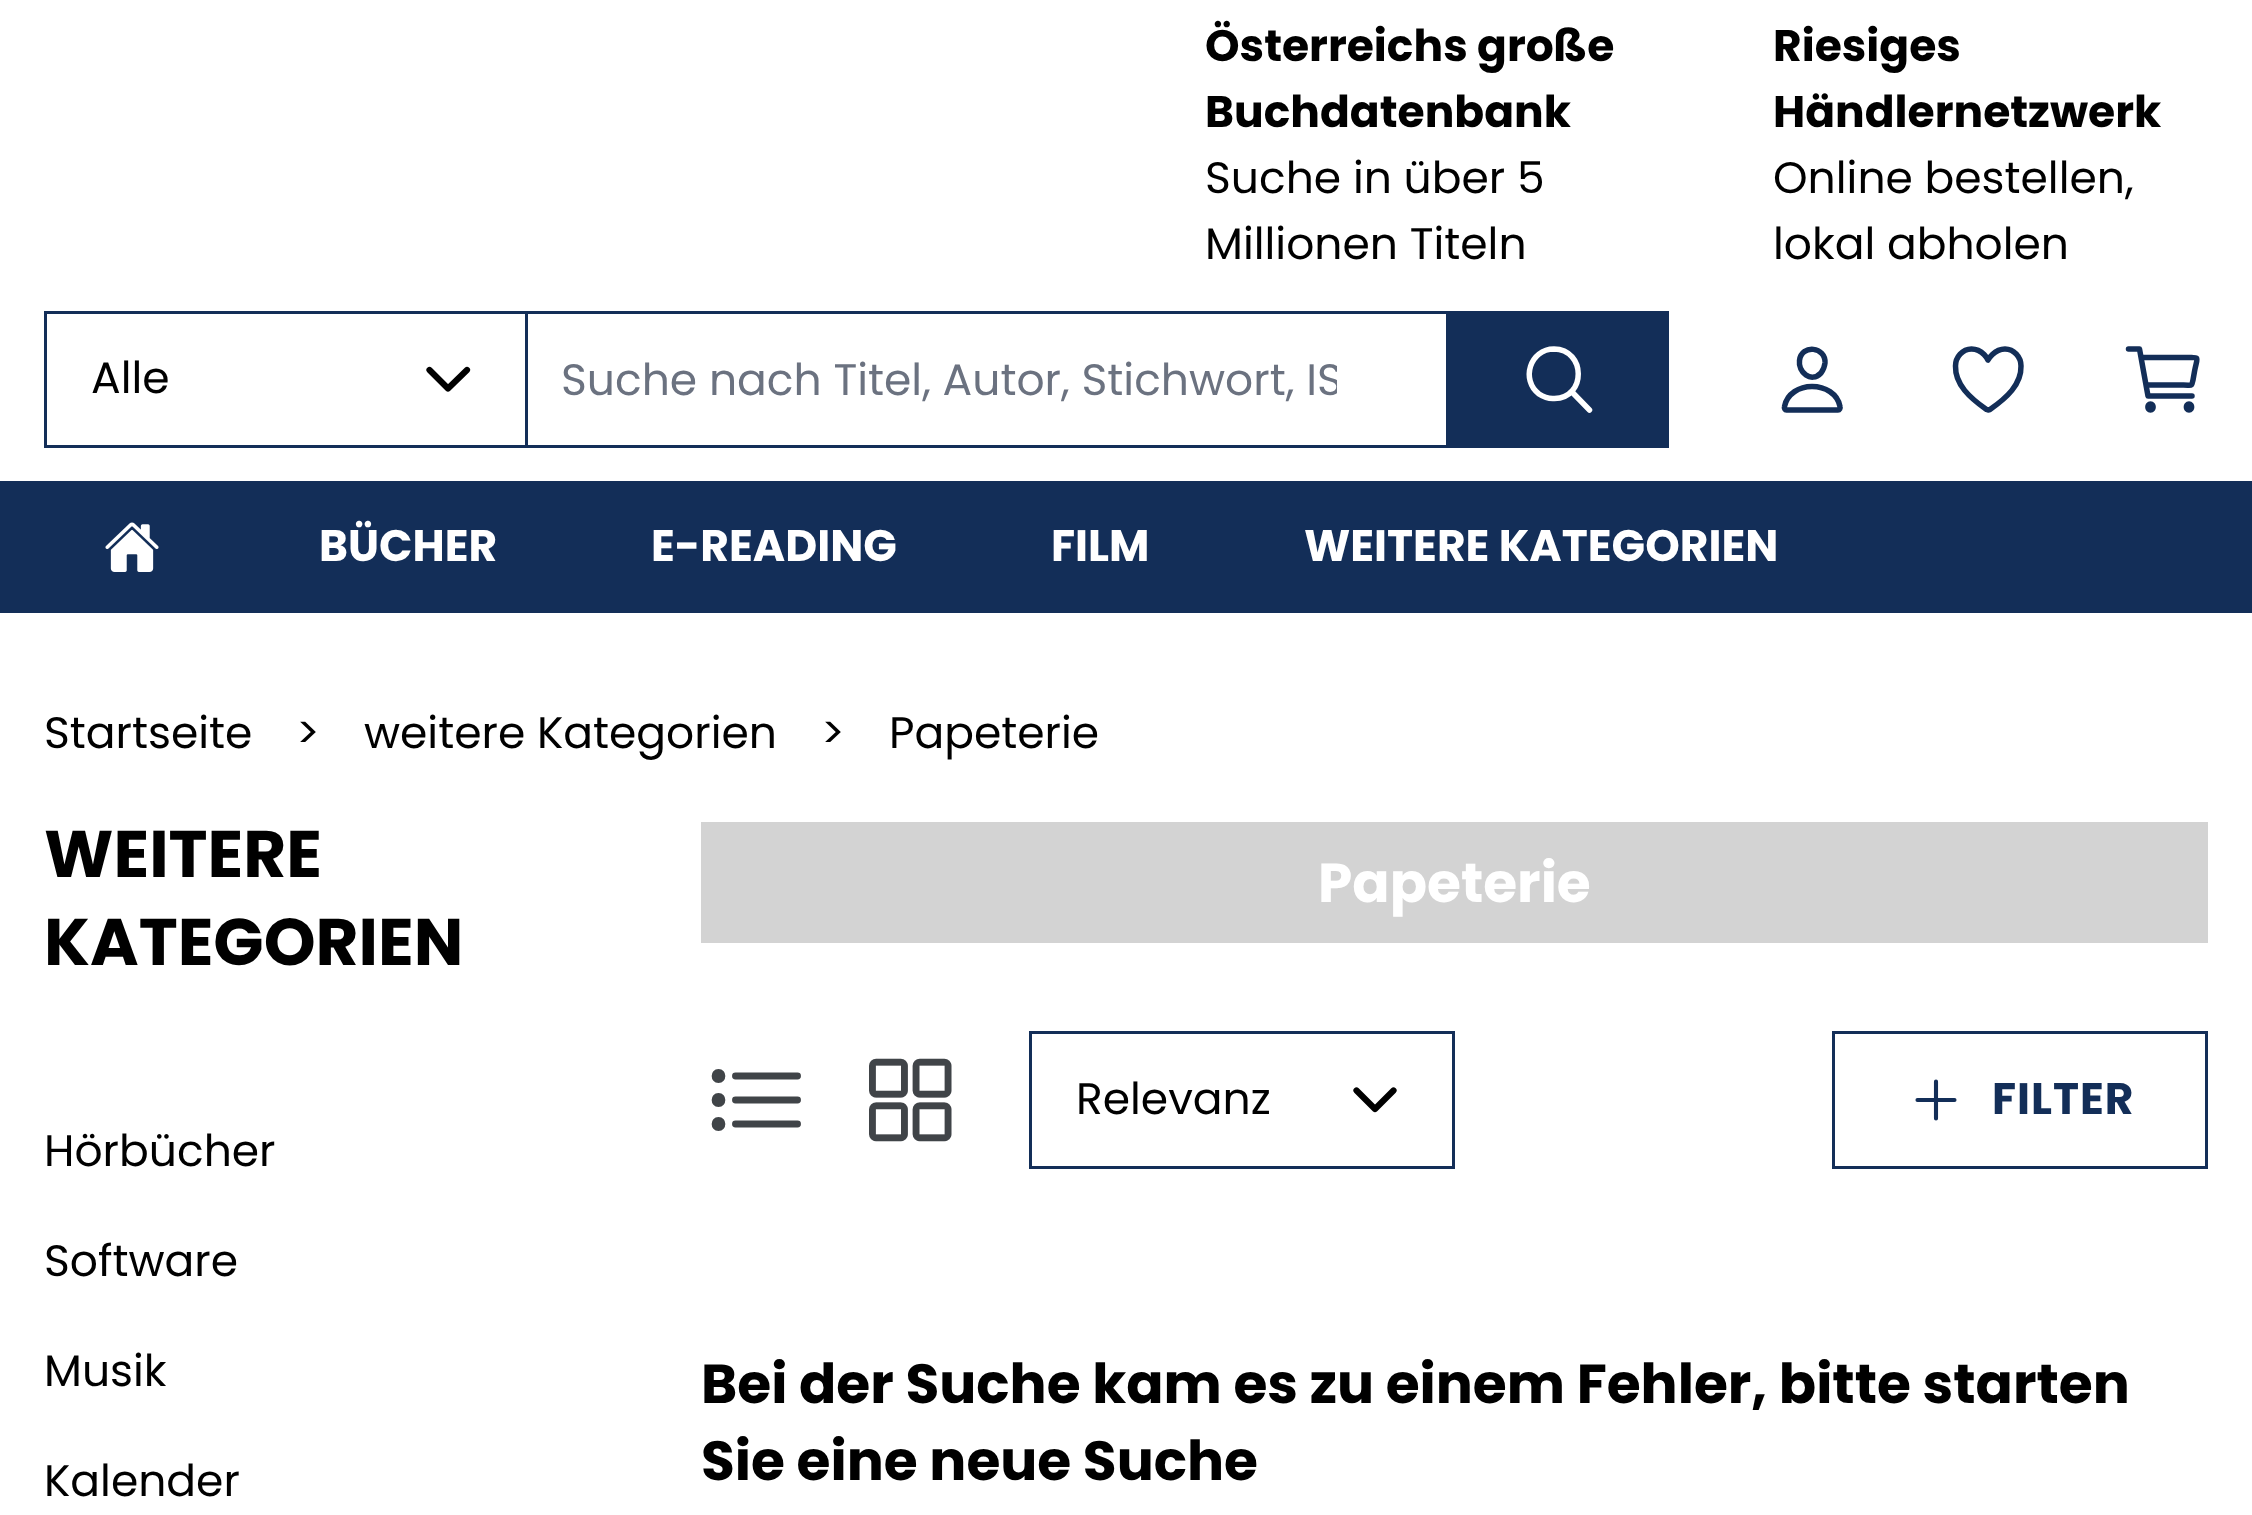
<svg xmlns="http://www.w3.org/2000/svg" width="2252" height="1515">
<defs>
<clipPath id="clip1"><rect x="561" y="347" width="776" height="68"/></clipPath>
</defs>
<rect width="100%" height="100%" fill="#fff"/>
<text x="1205" y="61" style="font-family:Poppins;font-size:44px;font-weight:bold;fill:#000">Österreichs große</text>
<text x="1205" y="127" style="font-family:Poppins;font-size:44px;font-weight:bold;fill:#000">Buchdatenbank</text>
<text x="1205" y="193" style="font-family:Poppins;font-size:44px;fill:#000">Suche in über 5</text>
<text x="1205" y="259" style="font-family:Poppins;font-size:44px;fill:#000">Millionen Titeln</text>
<text x="1773" y="61" style="font-family:Poppins;font-size:44px;font-weight:bold;fill:#000">Riesiges</text>
<text x="1773" y="127" style="font-family:Poppins;font-size:44px;font-weight:bold;fill:#000">Händlernetzwerk</text>
<text x="1773" y="193" style="font-family:Poppins;font-size:44px;fill:#000">Online bestellen,</text>
<text x="1773" y="259" style="font-family:Poppins;font-size:44px;fill:#000">lokal abholen</text>
<rect x="526.5" y="312.5" width="921" height="134" fill="none" stroke="#132e58" stroke-width="3"/>
<rect x="45.5" y="312.5" width="481" height="134" fill="none" stroke="#132e58" stroke-width="3"/>
<text x="91" y="393" style="font-family:Poppins;font-size:44px;fill:#000">Alle</text>
<path d="M429.5 370l18.5 18.5l19-18.5" fill="none" stroke="#000" stroke-width="6.2" stroke-linecap="round" stroke-linejoin="round"/>
<g clip-path="url(#clip1)">
<text x="561" y="395" style="font-family:Poppins;font-size:44px;fill:#6b7280">Suche nach Titel, Autor, Stichwort, IS</text>
</g>
<rect x="1449" y="311" width="220" height="137" fill="#132e58"/>
<path d="M1554 349c-24 0-33.5 31-15 45c4.5 3 10 5 15.5 4.5c32-.5 31.5-49-.5-49.5z" fill="none" stroke="#fff" stroke-width="5.5"/>
<path d="M1572.5 392.5l17 17.5" fill="none" stroke="#fff" stroke-width="5.5" stroke-linecap="round"/>
<path d="M1825 363c-.5 4-2 7.5-4 10c-10 10.5-23-1-21.5-12.5c2-16.5 26.5-14 25.5 2.5z" fill="none" stroke="#132e58" stroke-width="5.5" stroke-linecap="round" stroke-linejoin="round"/>
<path d="M1812 386.5c-12.5 0-25 7-27.5 20c-.5 1.5 .5 3.5 2 3.5h51.5c1.5 0 2.5-2 2-3.5c-2.5-13-15-20-28-20z" fill="none" stroke="#132e58" stroke-width="5.5"/>
<path d="M2005 349c-11 0-17 11-17 11c0 0-5-11-16.5-11c-9 0-16 8-16 17c-.5 18.5 14.5 32 31 43.5l1.5 .5l2-.5c16.5-11.5 31.5-25 31-43.5c0-9-7-17-16-17z" fill="none" stroke="#132e58" stroke-width="5.5" stroke-linecap="round" stroke-linejoin="round"/>
<path d="M2150.5 410c3.5 0 3.5-6 0-6c-3.5 0-3.5 6 0 6zm38.5 0c3.5 0 3.5-6 0-6c-3.5 0-3.5 6 0 6z" fill="none" stroke="#132e58" stroke-width="5.5" stroke-linecap="round" stroke-linejoin="round"/>
<path d="M2128.5 349h11l8.5 47h44" fill="none" stroke="#132e58" stroke-width="5.5" stroke-linecap="round" stroke-linejoin="round"/>
<path d="M2148 385h35.5c8.5 0 8 2 9.5-5l1.5-8.5c3-16 6-14-8-14h-44.5" fill="none" stroke="#132e58" stroke-width="5.5" stroke-linecap="round" stroke-linejoin="round"/>
<rect y="481" width="2252" height="132" fill="#132e58"/>
<image x="105" y="522" width="54" height="50" href="media/1.png"/>
<text x="319" y="561" style="font-family:Poppins;font-size:44px;font-weight:bold;fill:#fff">BÜCHER</text>
<text x="651" y="561" style="font-family:Poppins;font-size:44px;font-weight:bold;fill:#fff">E-READING</text>
<text x="1051" y="561" style="font-family:Poppins;font-size:44px;font-weight:bold;fill:#fff">FILM</text>
<text x="1304" y="561" style="font-family:Poppins;font-size:44px;font-weight:bold;fill:#fff">WEITERE KATEGORIEN</text>
<text x="44" y="748" style="font-family:Poppins;font-size:44px;fill:#000">Startseite</text>
<text x="296" y="748" style="font-family:Poppins;font-size:44px;fill:#000">&gt;</text>
<text x="364" y="748" style="font-family:Poppins;font-size:44px;fill:#000">weitere Kategorien</text>
<text x="821" y="748" style="font-family:Poppins;font-size:44px;fill:#000">&gt;</text>
<text x="889" y="748" style="font-family:Poppins;font-size:44px;fill:#000">Papeterie</text>
<text x="44" y="877" style="font-family:Poppins;font-size:66px;font-weight:bold;fill:#000">WEITERE</text>
<text x="44" y="965" style="font-family:Poppins;font-size:66px;font-weight:bold;fill:#000">KATEGORIEN</text>
<text x="44" y="1166" style="font-family:Poppins;font-size:44px;fill:#000">Hörbücher</text>
<text x="44" y="1276" style="font-family:Poppins;font-size:44px;fill:#000">Software</text>
<text x="44" y="1386" style="font-family:Poppins;font-size:44px;fill:#000">Musik</text>
<text x="44" y="1496" style="font-family:Poppins;font-size:44px;fill:#000">Kalender</text>
<rect x="701" y="822" width="1507" height="121" fill="#d3d3d3"/>
<text x="1318" y="902" style="font-family:Poppins;font-size:55px;font-weight:bold;fill:#fff">Papeterie</text>
<path d="M735.5 1076h62" fill="none" stroke="#404448" stroke-width="6.9" stroke-linecap="round" stroke-linejoin="round"/>
<path d="M735.5 1100h62" fill="none" stroke="#404448" stroke-width="6.9" stroke-linecap="round" stroke-linejoin="round"/>
<path d="M735.5 1124h62" fill="none" stroke="#404448" stroke-width="6.9" stroke-linecap="round" stroke-linejoin="round"/>
<path d="M718.5 1079.5c4.5 0 4.5-7 0-7c-4.5 0-4.5 7 0 7zm0 24c4.5 0 4.5-7 0-7c-4.5 0-4.5 7 0 7zm0 24c4.5 0 4.5-7 0-7c-4.5 0-4.5 7 0 7z" fill="none" stroke="#404448" stroke-width="6.9" stroke-linecap="round" stroke-linejoin="round"/>
<image x="869" y="1058" width="83" height="84" href="media/2.png"/>
<rect x="1030.5" y="1032.5" width="423" height="135" fill="none" stroke="#132e58" stroke-width="3"/>
<text x="1076" y="1114" style="font-family:Poppins;font-size:44px;fill:#000">Relevanz</text>
<path d="M1356.5 1090.5l18.5 18.5l18.5-18.5" fill="none" stroke="#000" stroke-width="6.2" stroke-linecap="round" stroke-linejoin="round"/>
<rect x="1833.5" y="1032.5" width="373" height="135" fill="none" stroke="#132e58" stroke-width="3"/>
<path d="M1936 1081.5v37m18.5-18.5h-37" fill="none" stroke="#132e58" stroke-width="4.1" stroke-linecap="round" stroke-linejoin="round"/>
<text x="1992" y="1114" style="font-family:Poppins;font-size:44px;font-weight:bold;letter-spacing:1px;fill:#132e58">FILTER</text>
<text x="701" y="1403" style="font-family:Poppins;font-size:55px;font-weight:bold;fill:#000">Bei der Suche kam es zu einem Fehler, bitte starten</text>
<text x="701" y="1480" style="font-family:Poppins;font-size:55px;font-weight:bold;fill:#000">Sie eine neue Suche</text>
</svg>
